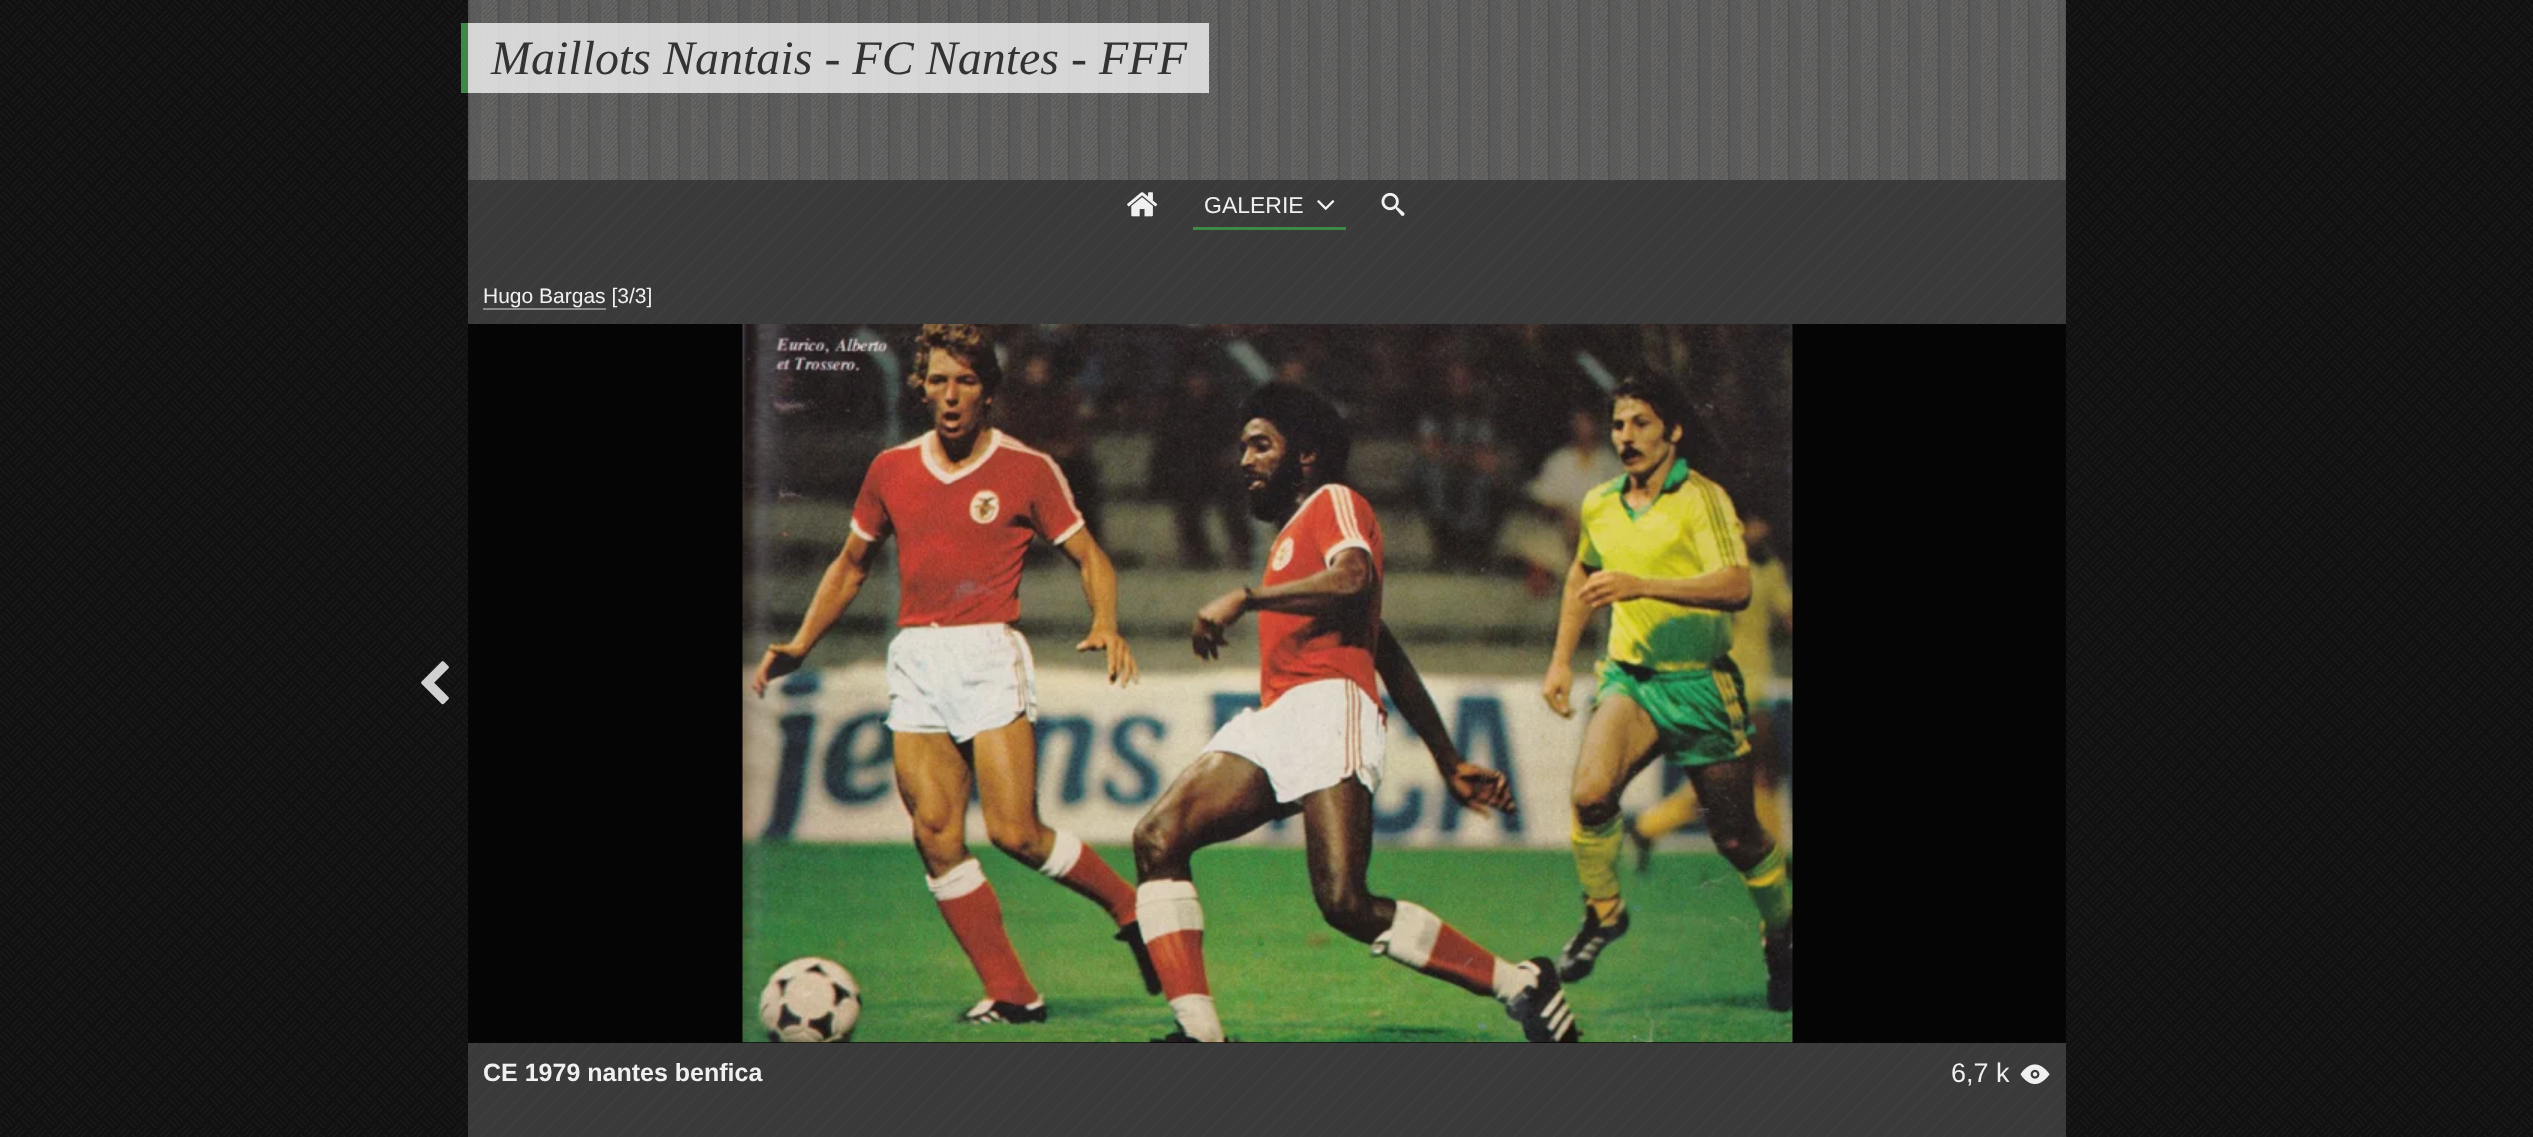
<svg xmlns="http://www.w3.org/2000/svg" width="2533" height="1137">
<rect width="100%" height="100%" fill="#111"/>
<image x="0" y="0" width="2533" height="1137" href="media/1.png"/>
<rect x="468" y="180" width="1598" height="957" fill="#3a3a3a"/>
<image x="468" y="180" width="1597" height="957" href="media/2.png"/>
<rect x="468" width="1598" height="180" fill="#4c4c4c"/>
<image x="468" y="0" width="1598" height="180" href="media/3.png"/>
<rect x="468" y="23" width="741" height="70" fill="#ffffffbf"/>
<rect x="461" y="23" width="7" height="70" fill="#3d8946"/>
<text x="491" y="74" style="font-family:Liberation Serif;font-size:48px;font-style:italic;fill:#333">Maillots Nantais - FC Nantes - FFF</text>
<image x="1127" y="192" width="31" height="25" href="media/4.png"/>
<rect x="1193" y="227" width="153" height="3" fill="#3d8946"/>
<text x="1204" y="213" style="font-family:Liberation Sans;font-size:23px;fill:#f0f0f0">GALERIE</text>
<image x="1317" y="200" width="18" height="10" href="media/5.png"/>
<image x="1381" y="192" width="24" height="24" href="media/6.png"/>
<text x="483" y="303" style="font-family:Liberation Sans;font-size:21px;fill:#f0f0f0">Hugo Bargas [3/3]</text>
<rect x="483" y="308" width="123" height="2" fill="#888"/>
<rect x="468" y="324" width="1598" height="719" fill="#050505"/>
<image x="421" y="661" width="28" height="44" href="media/7.png"/>
<image x="742" y="324" width="1051" height="719" href="media/8.png"/>
<text x="483" y="1081" style="font-family:Liberation Sans;font-size:25px;font-weight:bold;fill:#f0f0f0">CE 1979 nantes benfica</text>
<text x="1951" y="1082" style="font-family:Liberation Sans;font-size:27px;fill:#f0f0f0">6,7 k</text>
<image x="2020" y="1064" width="30" height="20" href="media/9.png"/>
</svg>
